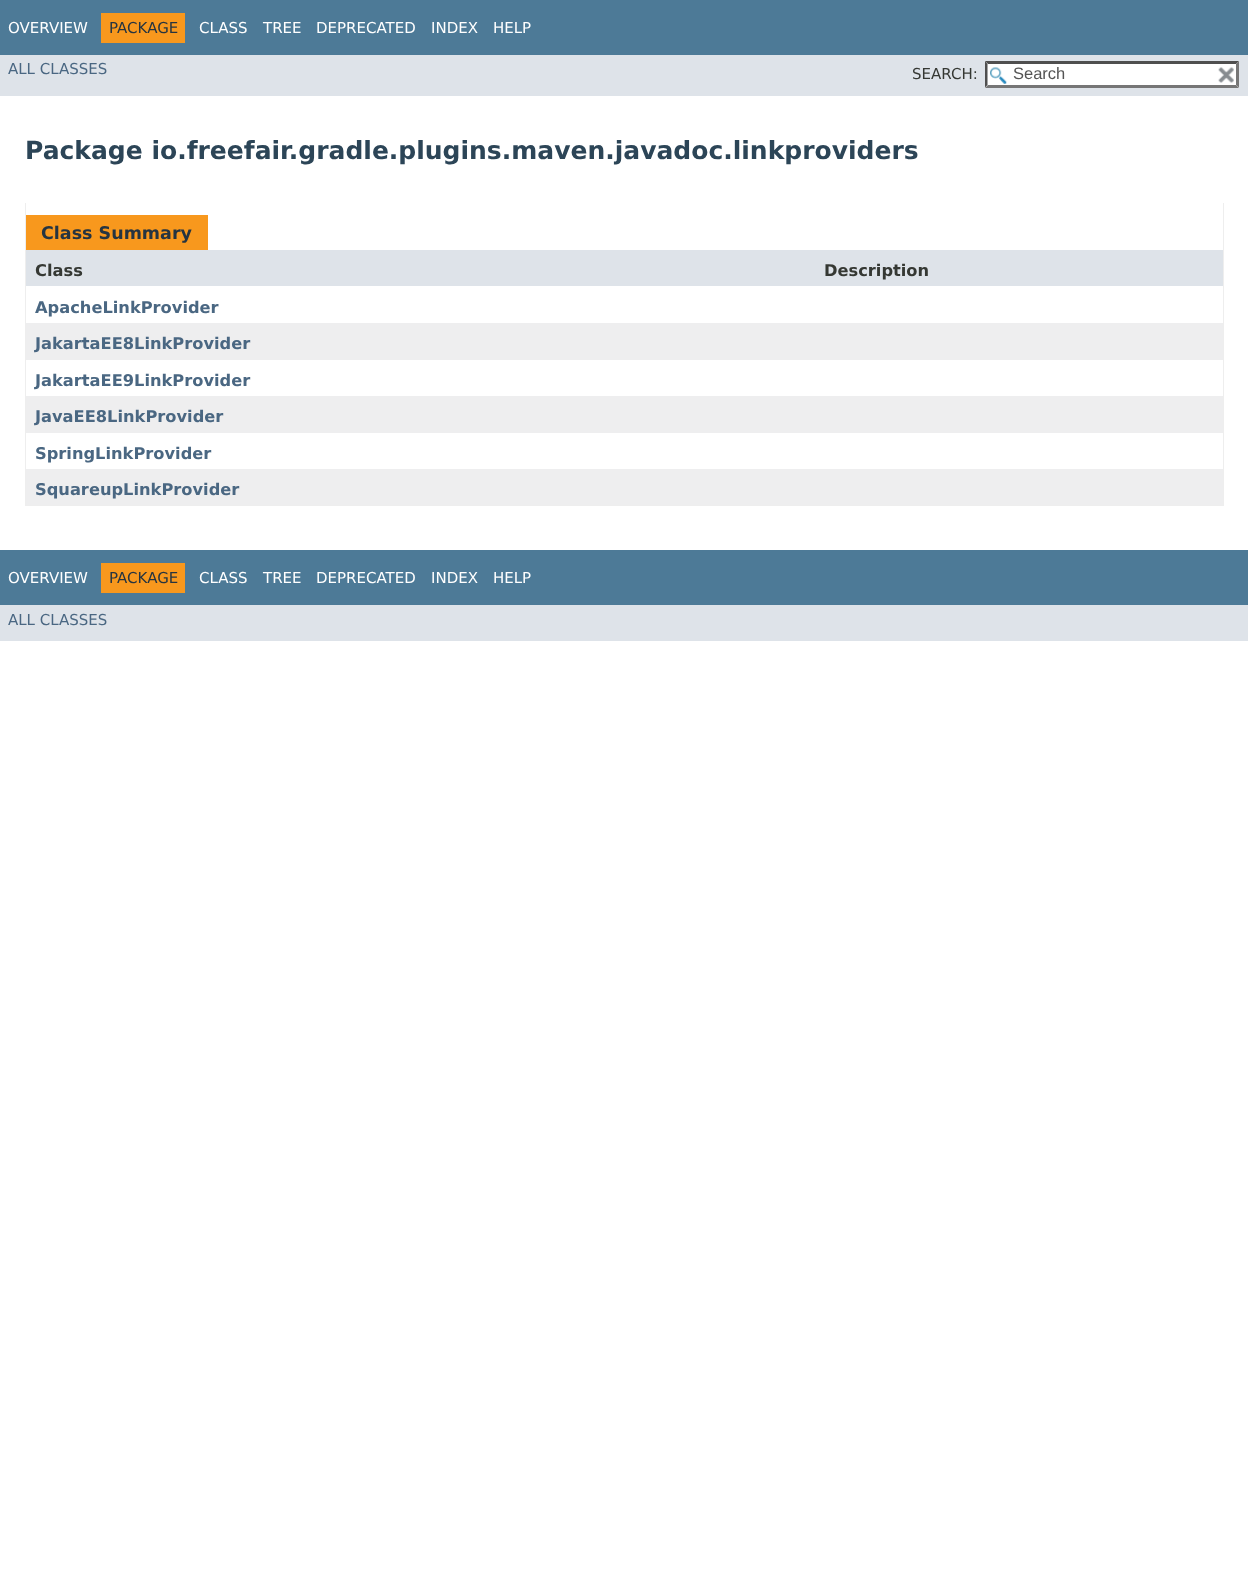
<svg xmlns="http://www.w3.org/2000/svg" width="1248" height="1575">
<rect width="100%" height="100%" fill="#fff"/>
<rect width="1248" height="55" fill="#4d7a97"/>
<text x="8" y="33" style="font-family:DejaVu Sans;font-size:15px;fill:#fff">OVERVIEW</text>
<rect x="101" y="13" width="84" height="30" fill="#f8981d"/>
<text x="109" y="33" style="font-family:DejaVu Sans;font-size:15px;fill:#253441">PACKAGE</text>
<text x="199" y="33" style="font-family:DejaVu Sans;font-size:15px;fill:#fff">CLASS</text>
<text x="263" y="33" style="font-family:DejaVu Sans;font-size:15px;fill:#fff">TREE</text>
<text x="316" y="33" style="font-family:DejaVu Sans;font-size:15px;fill:#fff">DEPRECATED</text>
<text x="431" y="33" style="font-family:DejaVu Sans;font-size:15px;fill:#fff">INDEX</text>
<text x="493" y="33" style="font-family:DejaVu Sans;font-size:15px;fill:#fff">HELP</text>
<rect y="55" width="1248" height="41" fill="#dee3e9"/>
<text x="8" y="74" style="font-family:DejaVu Sans;font-size:15px;fill:#4a6782">ALL CLASSES</text>
<text x="912" y="79" style="font-family:DejaVu Sans;font-size:15px;fill:#353833">SEARCH:</text>
<rect x="985" y="61" width="254" height="27" fill="#fff"/>
<image x="990" y="67" width="17" height="17" href="media/1.png"/>
<path d="M985 61h254l-3 3h-248z" fill="#4f4f4f"/>
<path d="M1239 61v26.5l-3-2.5v-21z" fill="#767676"/>
<path d="M1239 88h-254l3-3h248z" fill="#767676"/>
<path d="M985 87.5v-26.5l2.5 3v21z" fill="#4f4f4f"/>
<text x="1013" y="79" style="font-family:Liberation Sans;font-size:16.5px;fill:#545454">Search</text>
<image x="1218" y="67" width="16" height="16" href="media/2.png"/>
<text x="25" y="159" style="font-family:DejaVu Sans;font-size:25px;font-weight:bold;fill:#2c4557">Package io.freefair.gradle.plugins.maven.javadoc.linkproviders</text>
<rect x="1223" y="203" width="1" height="303" fill="#eee"/>
<rect x="25" y="505" width="1199" height="1" fill="#eee"/>
<rect x="25" y="203" width="1" height="303" fill="#eee"/>
<rect x="26" y="215" width="182" height="35" fill="#f8981d"/>
<text x="41" y="239" style="font-family:DejaVu Sans;font-size:17.5px;font-weight:bold;fill:#253441">Class Summary</text>
<rect x="26" y="250" width="1197" height="36" fill="#dee3e9"/>
<text x="35" y="276" style="font-family:DejaVu Sans;font-size:16.25px;font-weight:bold;fill:#353833">Class</text>
<text x="824" y="276" style="font-family:DejaVu Sans;font-size:16.25px;font-weight:bold;fill:#353833">Description</text>
<text x="35" y="313" style="font-family:DejaVu Sans;font-size:16.25px;font-weight:bold;fill:#4a6782">ApacheLinkProvider</text>
<rect x="26" y="323" width="1197" height="37" fill="#eeeeef"/>
<text x="35" y="349" style="font-family:DejaVu Sans;font-size:16.25px;font-weight:bold;fill:#4a6782">JakartaEE8LinkProvider</text>
<text x="35" y="386" style="font-family:DejaVu Sans;font-size:16.25px;font-weight:bold;fill:#4a6782">JakartaEE9LinkProvider</text>
<rect x="26" y="396" width="1197" height="37" fill="#eeeeef"/>
<text x="35" y="422" style="font-family:DejaVu Sans;font-size:16.25px;font-weight:bold;fill:#4a6782">JavaEE8LinkProvider</text>
<text x="35" y="459" style="font-family:DejaVu Sans;font-size:16.25px;font-weight:bold;fill:#4a6782">SpringLinkProvider</text>
<rect x="26" y="469" width="1197" height="36" fill="#eeeeef"/>
<text x="35" y="495" style="font-family:DejaVu Sans;font-size:16.25px;font-weight:bold;fill:#4a6782">SquareupLinkProvider</text>
<rect y="550" width="1248" height="55" fill="#4d7a97"/>
<text x="8" y="583" style="font-family:DejaVu Sans;font-size:15px;fill:#fff">OVERVIEW</text>
<rect x="101" y="563" width="84" height="30" fill="#f8981d"/>
<text x="109" y="583" style="font-family:DejaVu Sans;font-size:15px;fill:#253441">PACKAGE</text>
<text x="199" y="583" style="font-family:DejaVu Sans;font-size:15px;fill:#fff">CLASS</text>
<text x="263" y="583" style="font-family:DejaVu Sans;font-size:15px;fill:#fff">TREE</text>
<text x="316" y="583" style="font-family:DejaVu Sans;font-size:15px;fill:#fff">DEPRECATED</text>
<text x="431" y="583" style="font-family:DejaVu Sans;font-size:15px;fill:#fff">INDEX</text>
<text x="493" y="583" style="font-family:DejaVu Sans;font-size:15px;fill:#fff">HELP</text>
<rect y="605" width="1248" height="36" fill="#dee3e9"/>
<text x="8" y="625" style="font-family:DejaVu Sans;font-size:15px;fill:#4a6782">ALL CLASSES</text>
</svg>
